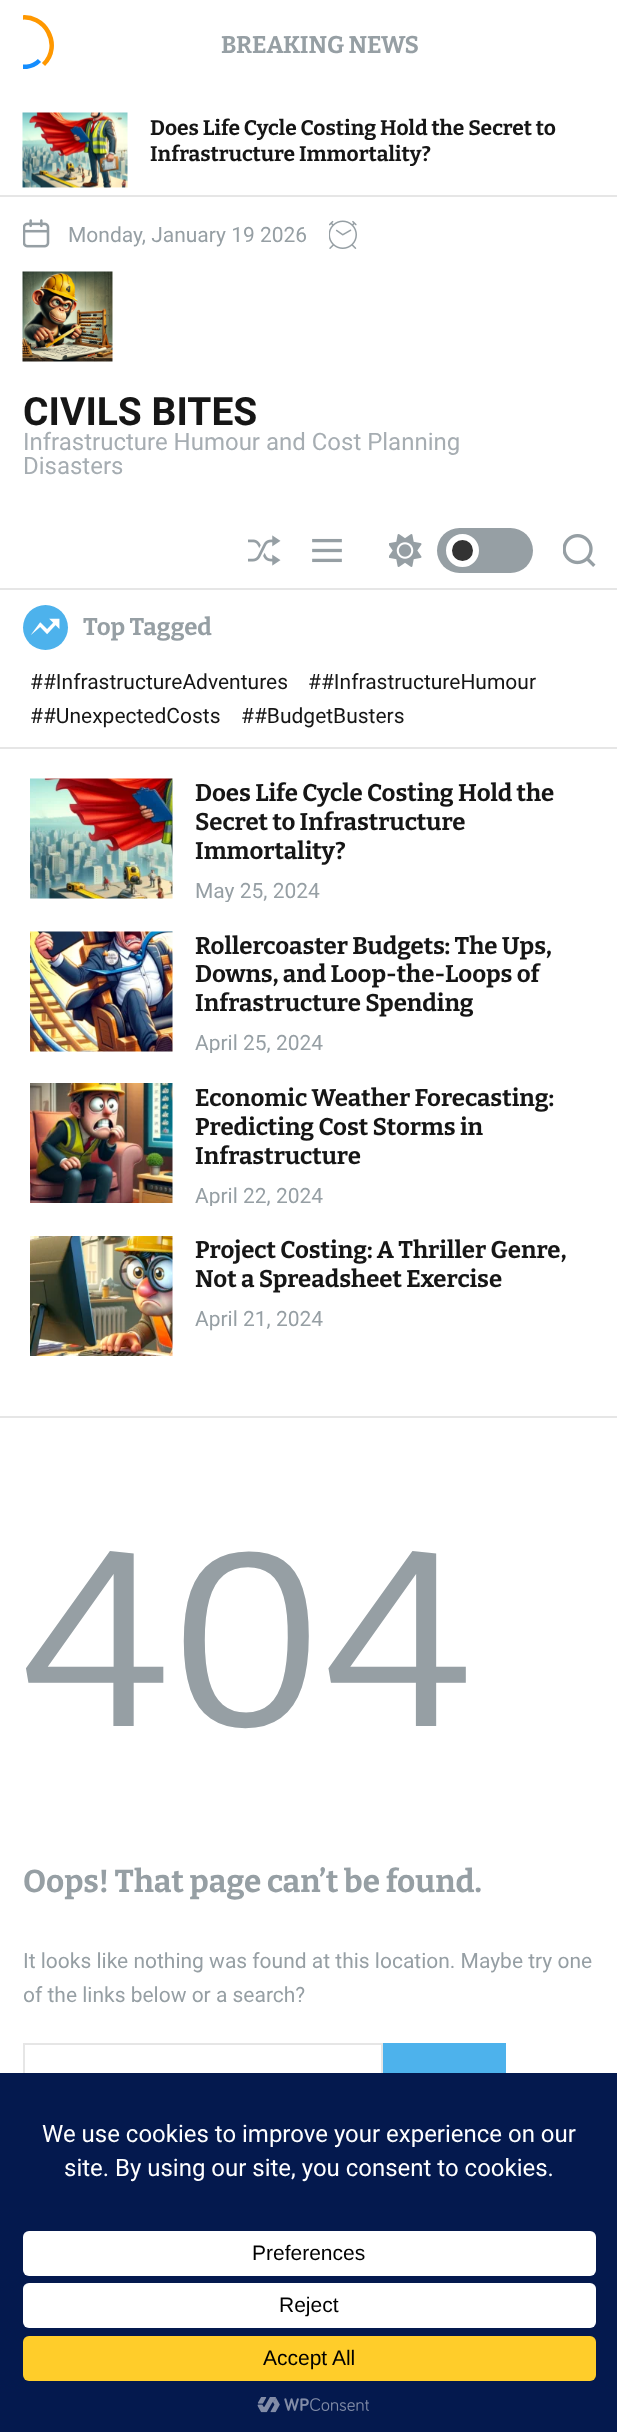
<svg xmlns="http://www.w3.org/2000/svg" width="617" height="2432">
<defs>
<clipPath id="clip1"><rect x="23" y="8" width="573" height="75"/></clipPath>
<clipPath id="clip2"><rect x="23" y="779" width="573" height="123"/></clipPath>
<clipPath id="clip3"><rect x="23" y="932" width="573" height="121"/></clipPath>
<clipPath id="clip4"><rect x="23" y="1083" width="573" height="123"/></clipPath>
</defs>
<rect width="100%" height="100%" fill="#fff"/>
<rect y="195" width="617" height="2" fill="#e6e6e6"/>
<g clip-path="url(#clip1)">
<path d="M39.5 60.5c-15 15-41 1-37-20c1-4 3-8 6-11" fill="none" stroke="#148dfe" stroke-width="4.5"/>
<path d="M4.5 25.5c3.5-4 8.5-6.5 14-7.5c26.5-5.5 44.5 27.5 25 46.5" fill="none" stroke="#ff9800" stroke-width="4.5"/>
</g>
<text x="221" y="53" style="font-family:Bitter;font-size:24px;font-weight:bold;fill:#969fa4">BREAKING NEWS</text>
<image x="22" y="112" width="106" height="76" href="media/1.png"/>
<text x="150" y="135" style="font-family:Bitter;font-size:21px;font-weight:bold;fill:#161616">Does Life Cycle Costing Hold the Secret to</text>
<text x="150" y="161" style="font-family:Bitter;font-size:21px;font-weight:bold;fill:#161616">Infrastructure Immortality?</text>
<image x="23" y="219" width="27" height="29" href="media/2.png"/>
<text x="68" y="242" style="font-family:Roboto;font-size:21px;fill:#969fa4">Monday, January 19 2026</text>
<image x="329" y="220" width="28" height="29" href="media/3.png"/>
<image x="22" y="271" width="91" height="91" href="media/4.png"/>
<text x="23" y="425" style="font-family:Roboto;font-size:39px;font-weight:bold;fill:#161616">CIVILS BITES</text>
<text x="23" y="450" style="font-family:Roboto;font-size:24px;fill:#a6adb2">Infrastructure Humour and Cost Planning</text>
<text x="23" y="474" style="font-family:Roboto;font-size:24px;fill:#a6adb2">Disasters</text>
<rect y="588" width="617" height="2" fill="#e6e6e6"/>
<image x="248" y="535" width="33" height="31" href="media/5.png"/>
<image x="312" y="538" width="30" height="25" href="media/6.png"/>
<image x="389" y="534" width="33" height="33" href="media/7.png"/>
<rect x="437" y="528" width="96" height="45" rx="22.5" fill="#969fa4"/>
<circle cx="462.5" cy="550.5" r="13.5" fill="#333" stroke="#fff" stroke-width="6"/>
<image x="563" y="534" width="33" height="33" href="media/8.png"/>
<rect y="747" width="617" height="2" fill="#e6e6e6"/>
<circle cx="45.5" cy="627.5" r="22.5" fill="#4db2ec"/>
<image x="30" y="618" width="30" height="17" href="media/9.png"/>
<text x="83" y="635" style="font-family:Bitter;font-size:24px;font-weight:bold;fill:#969fa4">Top Tagged</text>
<text x="30" y="689" style="font-family:Roboto;font-size:21px;fill:#161616">##InfrastructureAdventures</text>
<text x="308" y="689" style="font-family:Roboto;font-size:21px;fill:#161616">##InfrastructureHumour</text>
<text x="30" y="723" style="font-family:Roboto;font-size:21px;fill:#161616">##UnexpectedCosts</text>
<text x="241" y="723" style="font-family:Roboto;font-size:21px;fill:#161616">##BudgetBusters</text>
<rect y="1416" width="617" height="2" fill="#e6e6e6"/>
<image x="30" y="778" width="143" height="121" href="media/10.png"/>
<text x="195" y="801" style="font-family:Bitter;font-size:24px;font-weight:bold;fill:#161616">Does Life Cycle Costing Hold the</text>
<text x="195" y="830" style="font-family:Bitter;font-size:24px;font-weight:bold;fill:#161616">Secret to Infrastructure</text>
<text x="195" y="859" style="font-family:Bitter;font-size:24px;font-weight:bold;fill:#161616">Immortality?</text>
<g clip-path="url(#clip2)">
<text x="195" y="898" style="font-family:Roboto;font-size:21px;fill:#969fa4">May 25, 2024</text>
</g>
<image x="30" y="931" width="143" height="121" href="media/11.png"/>
<text x="195" y="954" style="font-family:Bitter;font-size:24px;font-weight:bold;fill:#161616">Rollercoaster Budgets: The Ups,</text>
<text x="195" y="982" style="font-family:Bitter;font-size:24px;font-weight:bold;fill:#161616">Downs, and Loop-the-Loops of</text>
<text x="195" y="1011" style="font-family:Bitter;font-size:24px;font-weight:bold;fill:#161616">Infrastructure Spending</text>
<g clip-path="url(#clip3)">
<text x="195" y="1050" style="font-family:Roboto;font-size:21px;fill:#969fa4">April 25, 2024</text>
</g>
<image x="30" y="1083" width="143" height="120" href="media/12.png"/>
<text x="195" y="1106" style="font-family:Bitter;font-size:24px;font-weight:bold;fill:#161616">Economic Weather Forecasting:</text>
<text x="195" y="1135" style="font-family:Bitter;font-size:24px;font-weight:bold;fill:#161616">Predicting Cost Storms in</text>
<text x="195" y="1164" style="font-family:Bitter;font-size:24px;font-weight:bold;fill:#161616">Infrastructure</text>
<g clip-path="url(#clip4)">
<text x="195" y="1203" style="font-family:Roboto;font-size:21px;fill:#969fa4">April 22, 2024</text>
</g>
<image x="30" y="1236" width="143" height="120" href="media/13.png"/>
<text x="195" y="1258" style="font-family:Bitter;font-size:24px;font-weight:bold;fill:#161616">Project Costing: A Thriller Genre,</text>
<text x="195" y="1287" style="font-family:Bitter;font-size:24px;font-weight:bold;fill:#161616">Not a Spreadsheet Exercise</text>
<text x="195" y="1326" style="font-family:Roboto;font-size:21px;fill:#969fa4">April 21, 2024</text>
<text x="23" y="1726" style="font-family:Bitter;font-size:247px;fill:#969fa4">404</text>
<text x="23" y="1892" style="font-family:Bitter;font-size:31.5px;font-weight:bold;fill:#969fa4">Oops! That page can’t be found.</text>
<text x="23" y="1968" style="font-family:Roboto;font-size:21px;fill:#969fa4">It looks like nothing was found at this location. Maybe try one</text>
<text x="23" y="2002" style="font-family:Roboto;font-size:21px;fill:#969fa4">of the links below or a search?</text>
<rect x="24" y="2044" width="358" height="75" fill="none" stroke="#e6e6e6" stroke-width="2"/>
<rect x="383" y="2043" width="123" height="30" fill="#4db2ec"/>
<rect y="2073" width="617" height="359" fill="#04194e"/>
<text x="42" y="2142" style="font-family:Roboto;font-size:24px;fill:#fff">We use cookies to improve your experience on our</text>
<text x="64" y="2176" style="font-family:Roboto;font-size:24px;fill:#fff">site. By using our site, you consent to cookies.</text>
<rect x="23" y="2231" width="573" height="45" rx="6" fill="#fff"/>
<text x="252" y="2260" style="font-family:Liberation Sans;font-size:21px;fill:#000">Preferences</text>
<rect x="23" y="2283" width="573" height="45" rx="6" fill="#fff"/>
<text x="279" y="2312" style="font-family:Liberation Sans;font-size:21px;fill:#000">Reject</text>
<rect x="23" y="2336" width="573" height="45" rx="6" fill="#ffcd2a"/>
<text x="263" y="2365" style="font-family:Liberation Sans;font-size:21px;fill:#000">Accept All</text>
<image x="257" y="2397" width="112" height="16" href="media/14.png"/>
</svg>
